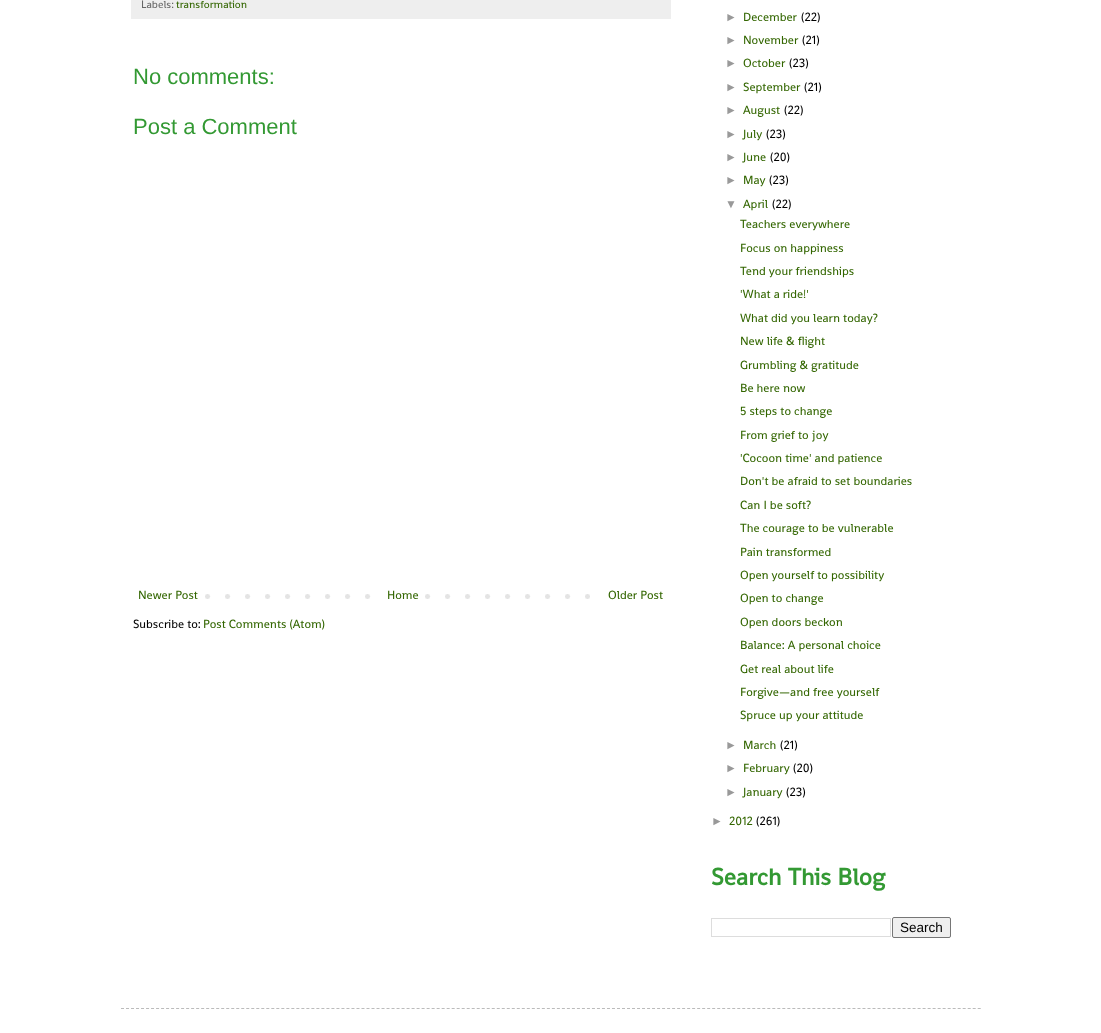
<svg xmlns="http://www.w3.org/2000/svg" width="1101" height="1033">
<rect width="100%" height="100%" fill="#fff"/>
<rect x="131" width="540" height="19" fill="#eee"/>
<text x="141" y="8" style="font-family:Shanti;font-size:10.75px;fill:#666">Labels:</text>
<text x="176" y="8" style="font-family:Shanti;font-size:10.75px;fill:#360">transformation</text>
<text x="133" y="84" style="font-family:Liberation Sans;font-size:22px;fill:#393">No comments:</text>
<text x="133" y="134" style="font-family:Liberation Sans;font-size:22px;fill:#393">Post a Comment</text>
<image x="205" y="594" width="385" height="5" href="media/1.png"/>
<text x="138" y="599" style="font-family:Shanti;font-size:12px;fill:#360">Newer Post</text>
<rect x="385" y="594" width="26" height="5" fill="#fff"/>
<text x="387" y="599" style="font-family:Shanti;font-size:12px;fill:#360">Home</text>
<text x="608" y="599" style="font-family:Shanti;font-size:12px;fill:#360">Older Post</text>
<text x="133" y="628" style="font-family:Shanti;font-size:12px;fill:#000">Subscribe to:</text>
<text x="203" y="628" style="font-family:Shanti;font-size:12px;fill:#360">Post Comments (Atom)</text>
<text x="725" y="21" style="font-family:Liberation Sans;font-size:12px;fill:#999">►</text>
<text x="743" y="21" style="font-family:Shanti;font-size:12px;fill:#360">December</text>
<text x="801" y="21" style="font-family:Shanti;font-size:12px;fill:#000">(22)</text>
<text x="725" y="44" style="font-family:Liberation Sans;font-size:12px;fill:#999">►</text>
<text x="743" y="44" style="font-family:Shanti;font-size:12px;fill:#360">November</text>
<text x="802" y="44" style="font-family:Shanti;font-size:12px;fill:#000">(21)</text>
<text x="725" y="67" style="font-family:Liberation Sans;font-size:12px;fill:#999">►</text>
<text x="743" y="67" style="font-family:Shanti;font-size:12px;fill:#360">October</text>
<text x="789" y="67" style="font-family:Shanti;font-size:12px;fill:#000">(23)</text>
<text x="725" y="91" style="font-family:Liberation Sans;font-size:12px;fill:#999">►</text>
<text x="743" y="91" style="font-family:Shanti;font-size:12px;fill:#360">September</text>
<text x="804" y="91" style="font-family:Shanti;font-size:12px;fill:#000">(21)</text>
<text x="725" y="114" style="font-family:Liberation Sans;font-size:12px;fill:#999">►</text>
<text x="743" y="114" style="font-family:Shanti;font-size:12px;fill:#360">August</text>
<text x="784" y="114" style="font-family:Shanti;font-size:12px;fill:#000">(22)</text>
<text x="725" y="138" style="font-family:Liberation Sans;font-size:12px;fill:#999">►</text>
<text x="743" y="138" style="font-family:Shanti;font-size:12px;fill:#360">July</text>
<text x="766" y="138" style="font-family:Shanti;font-size:12px;fill:#000">(23)</text>
<text x="725" y="161" style="font-family:Liberation Sans;font-size:12px;fill:#999">►</text>
<text x="743" y="161" style="font-family:Shanti;font-size:12px;fill:#360">June</text>
<text x="770" y="161" style="font-family:Shanti;font-size:12px;fill:#000">(20)</text>
<text x="725" y="184" style="font-family:Liberation Sans;font-size:12px;fill:#999">►</text>
<text x="743" y="184" style="font-family:Shanti;font-size:12px;fill:#360">May</text>
<text x="769" y="184" style="font-family:Shanti;font-size:12px;fill:#000">(23)</text>
<text x="725" y="208" style="font-family:Liberation Sans;font-size:12px;fill:#999">▼</text>
<text x="743" y="208" style="font-family:Shanti;font-size:12px;fill:#360">April</text>
<text x="772" y="208" style="font-family:Shanti;font-size:12px;fill:#000">(22)</text>
<text x="740" y="228" style="font-family:Shanti;font-size:12px;fill:#360">Teachers everywhere</text>
<text x="740" y="252" style="font-family:Shanti;font-size:12px;fill:#360">Focus on happiness</text>
<text x="740" y="275" style="font-family:Shanti;font-size:12px;fill:#360">Tend your friendships</text>
<text x="740" y="298" style="font-family:Shanti;font-size:12px;fill:#360">'What a ride!'</text>
<text x="740" y="322" style="font-family:Shanti;font-size:12px;fill:#360">What did you learn today?</text>
<text x="740" y="345" style="font-family:Shanti;font-size:12px;fill:#360">New life &amp; flight</text>
<text x="740" y="369" style="font-family:Shanti;font-size:12px;fill:#360">Grumbling &amp; gratitude</text>
<text x="740" y="392" style="font-family:Shanti;font-size:12px;fill:#360">Be here now</text>
<text x="740" y="415" style="font-family:Shanti;font-size:12px;fill:#360">5 steps to change</text>
<text x="740" y="439" style="font-family:Shanti;font-size:12px;fill:#360">From grief to joy</text>
<text x="740" y="462" style="font-family:Shanti;font-size:12px;fill:#360">'Cocoon time' and patience</text>
<text x="740" y="485" style="font-family:Shanti;font-size:12px;fill:#360">Don't be afraid to set boundaries</text>
<text x="740" y="509" style="font-family:Shanti;font-size:12px;fill:#360">Can I be soft?</text>
<text x="740" y="532" style="font-family:Shanti;font-size:12px;fill:#360">The courage to be vulnerable</text>
<text x="740" y="556" style="font-family:Shanti;font-size:12px;fill:#360">Pain transformed</text>
<text x="740" y="579" style="font-family:Shanti;font-size:12px;fill:#360">Open yourself to possibility</text>
<text x="740" y="602" style="font-family:Shanti;font-size:12px;fill:#360">Open to change</text>
<text x="740" y="626" style="font-family:Shanti;font-size:12px;fill:#360">Open doors beckon</text>
<text x="740" y="649" style="font-family:Shanti;font-size:12px;fill:#360">Balance: A personal choice</text>
<text x="740" y="673" style="font-family:Shanti;font-size:12px;fill:#360">Get real about life</text>
<text x="740" y="696" style="font-family:Shanti;font-size:12px;fill:#360">Forgive—and free yourself</text>
<text x="740" y="719" style="font-family:Shanti;font-size:12px;fill:#360">Spruce up your attitude</text>
<text x="725" y="749" style="font-family:Liberation Sans;font-size:12px;fill:#999">►</text>
<text x="743" y="749" style="font-family:Shanti;font-size:12px;fill:#360">March</text>
<text x="780" y="749" style="font-family:Shanti;font-size:12px;fill:#000">(21)</text>
<text x="725" y="772" style="font-family:Liberation Sans;font-size:12px;fill:#999">►</text>
<text x="743" y="772" style="font-family:Shanti;font-size:12px;fill:#360">February</text>
<text x="793" y="772" style="font-family:Shanti;font-size:12px;fill:#000">(20)</text>
<text x="725" y="796" style="font-family:Liberation Sans;font-size:12px;fill:#999">►</text>
<text x="743" y="796" style="font-family:Shanti;font-size:12px;fill:#360">January</text>
<text x="786" y="796" style="font-family:Shanti;font-size:12px;fill:#000">(23)</text>
<text x="711" y="825" style="font-family:Liberation Sans;font-size:12px;fill:#999">►</text>
<text x="729" y="825" style="font-family:Shanti;font-size:12px;fill:#360">2012</text>
<text x="756" y="825" style="font-family:Shanti;font-size:12px;fill:#000">(261)</text>
<text x="711" y="885" style="font-family:Shanti;font-size:24px;font-weight:bold;fill:#393">Search This Blog</text>
<rect x="711.5" y="918.5" width="179" height="18" fill="none" stroke="#ddd"/>
<rect x="892.5" y="917.5" width="58" height="20" rx="1.5" fill="#efefef" stroke="#767676"/>
<text x="900" y="932" style="font-family:Liberation Sans;font-size:13.5px;fill:#000">Search</text>
<path d="M121 1008.5h860" fill="none" stroke="#bbb" stroke-dasharray="3 2.01"/>
</svg>
